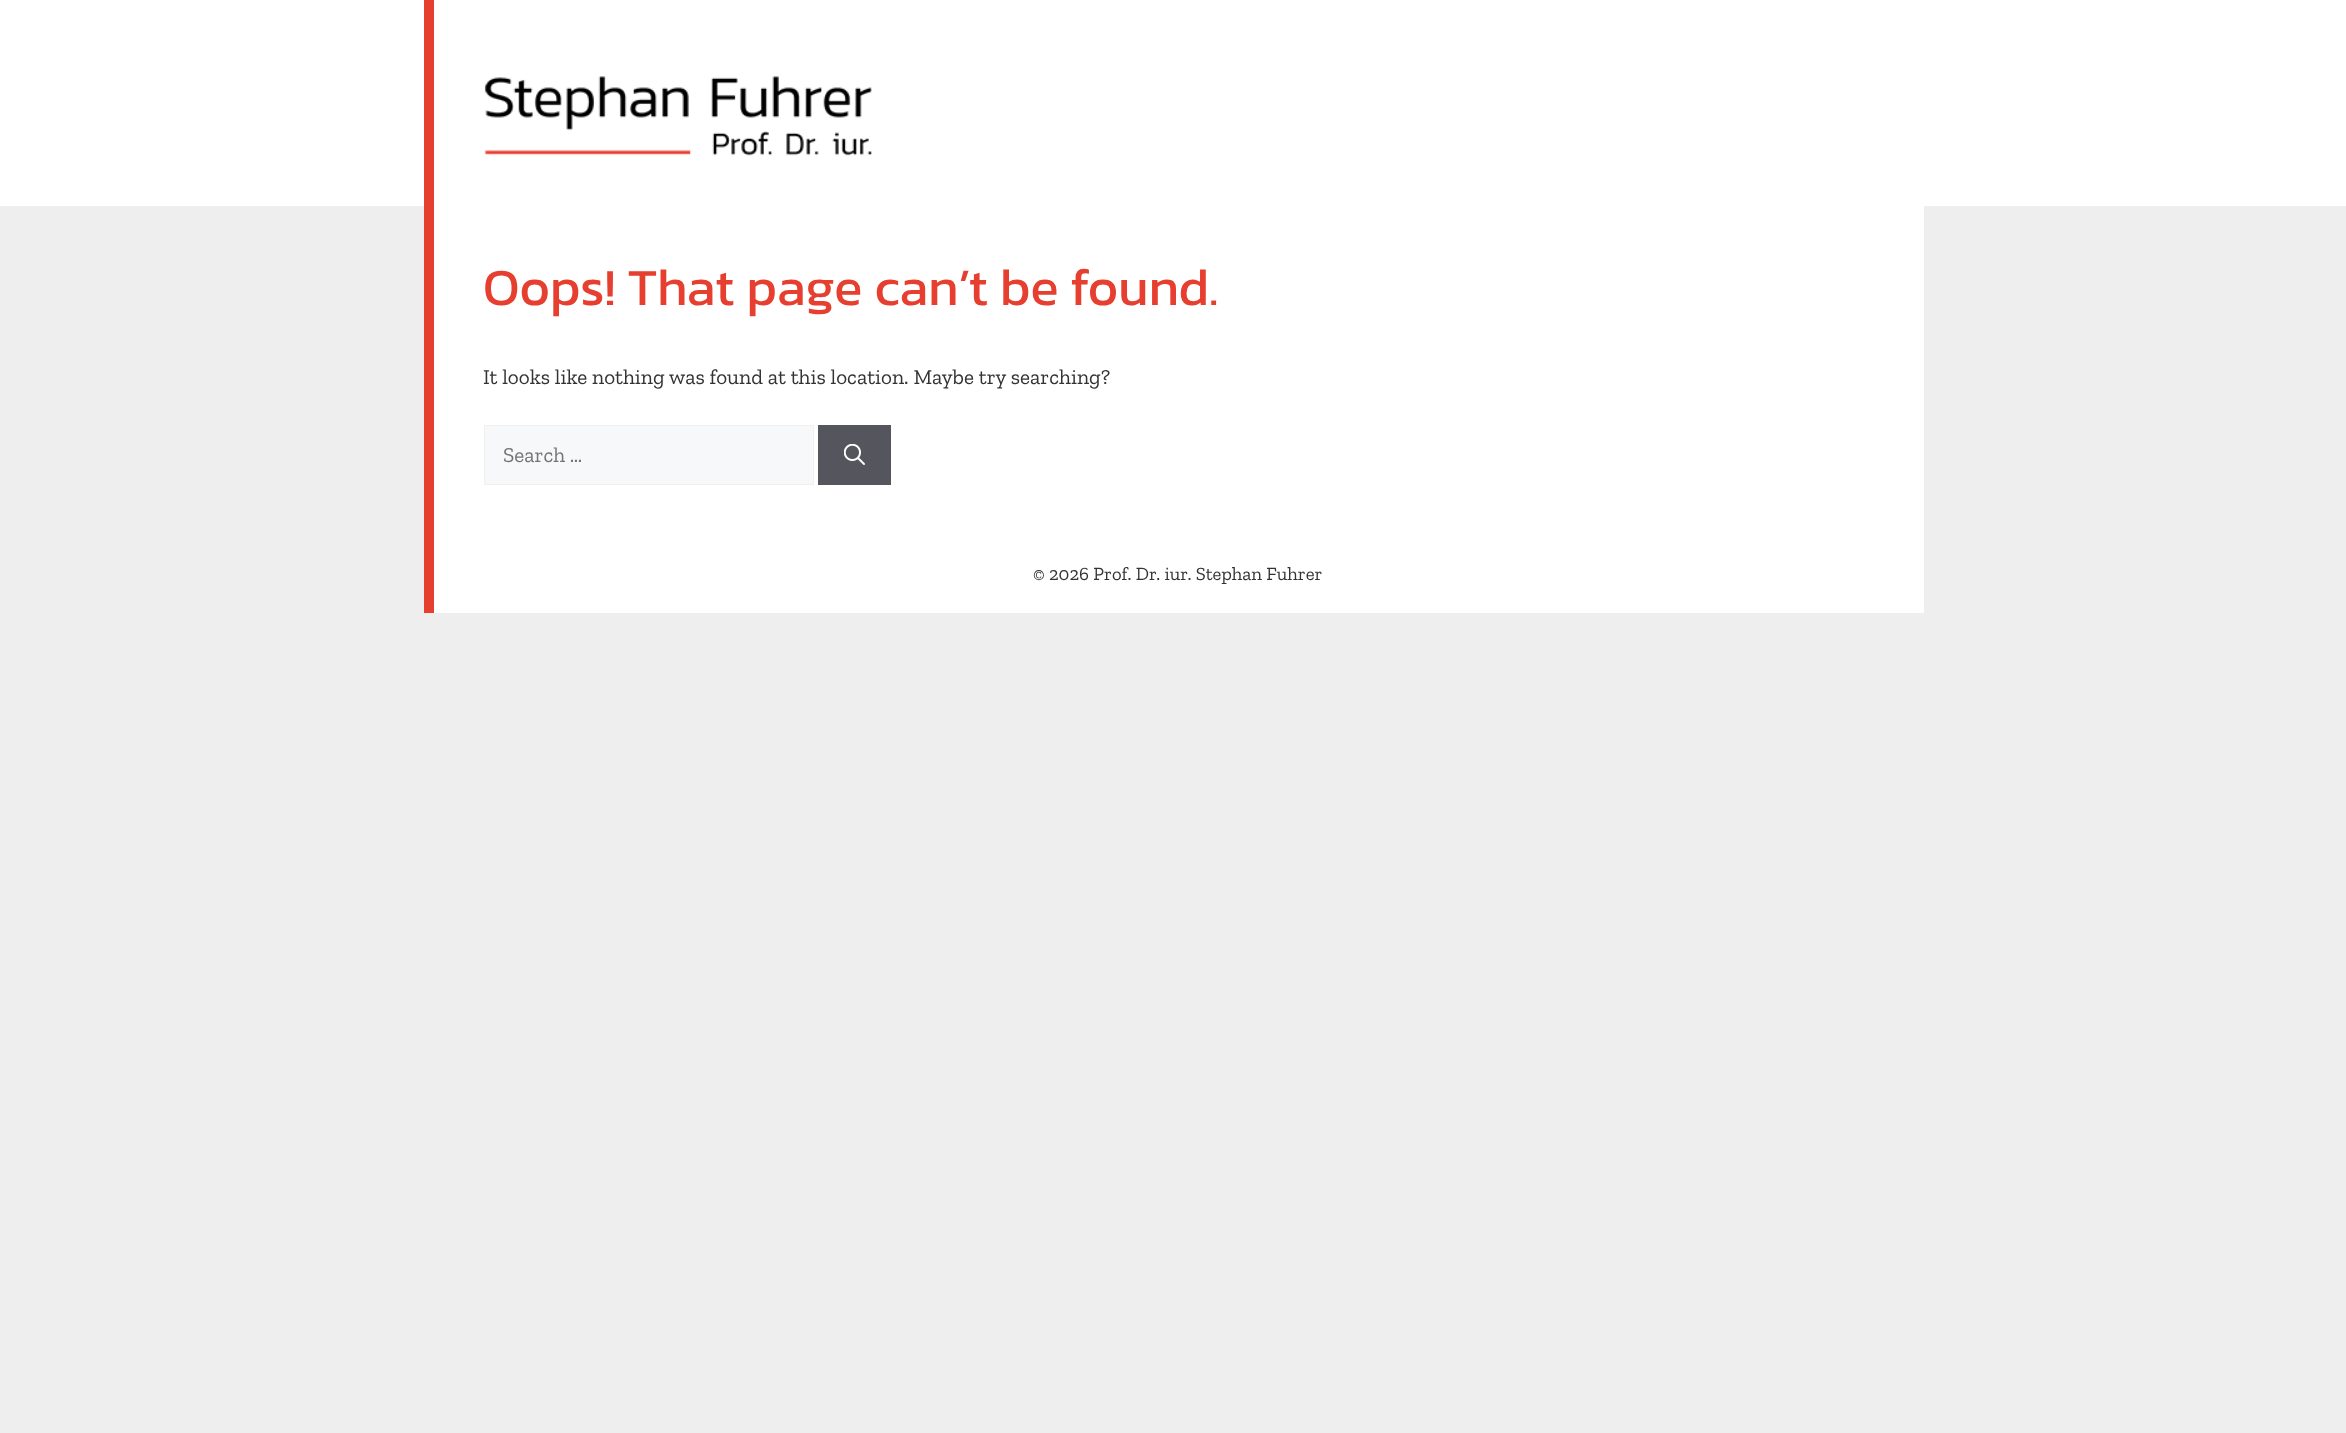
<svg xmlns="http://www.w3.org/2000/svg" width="2346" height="1433">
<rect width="100%" height="100%" fill="#eee"/>
<rect width="2346" height="206" fill="#fff"/>
<rect x="424" width="10" height="206" fill="#e63f2f"/>
<image x="484" y="76" width="388" height="80" href="media/1.png"/>
<rect x="434" y="206" width="1490" height="407" fill="#fff"/>
<rect x="424" y="206" width="10" height="407" fill="#e63f2f"/>
<text x="483" y="305" style="font-family:Kanit;font-size:52.5px;fill:#e63f2f">Oops! That page can’t be found.</text>
<text x="483" y="384" style="font-family:Zilla Slab;font-size:21.25px;fill:#333">It looks like nothing was found at this location. Maybe try searching?</text>
<rect x="484.5" y="425.5" width="329" height="59" fill="#f7f8f9" stroke="#f0f0f0"/>
<text x="503" y="462" style="font-family:Zilla Slab;font-size:21.25px;fill:#757575">Search …</text>
<rect x="818" y="425" width="73" height="60" fill="#55555e"/>
<image x="844" y="444" width="21" height="21" href="media/2.png"/>
<text x="1033" y="580" style="font-family:Zilla Slab;font-size:18.75px;fill:#333">© 2026 Prof. Dr. iur. Stephan Fuhrer</text>
</svg>
